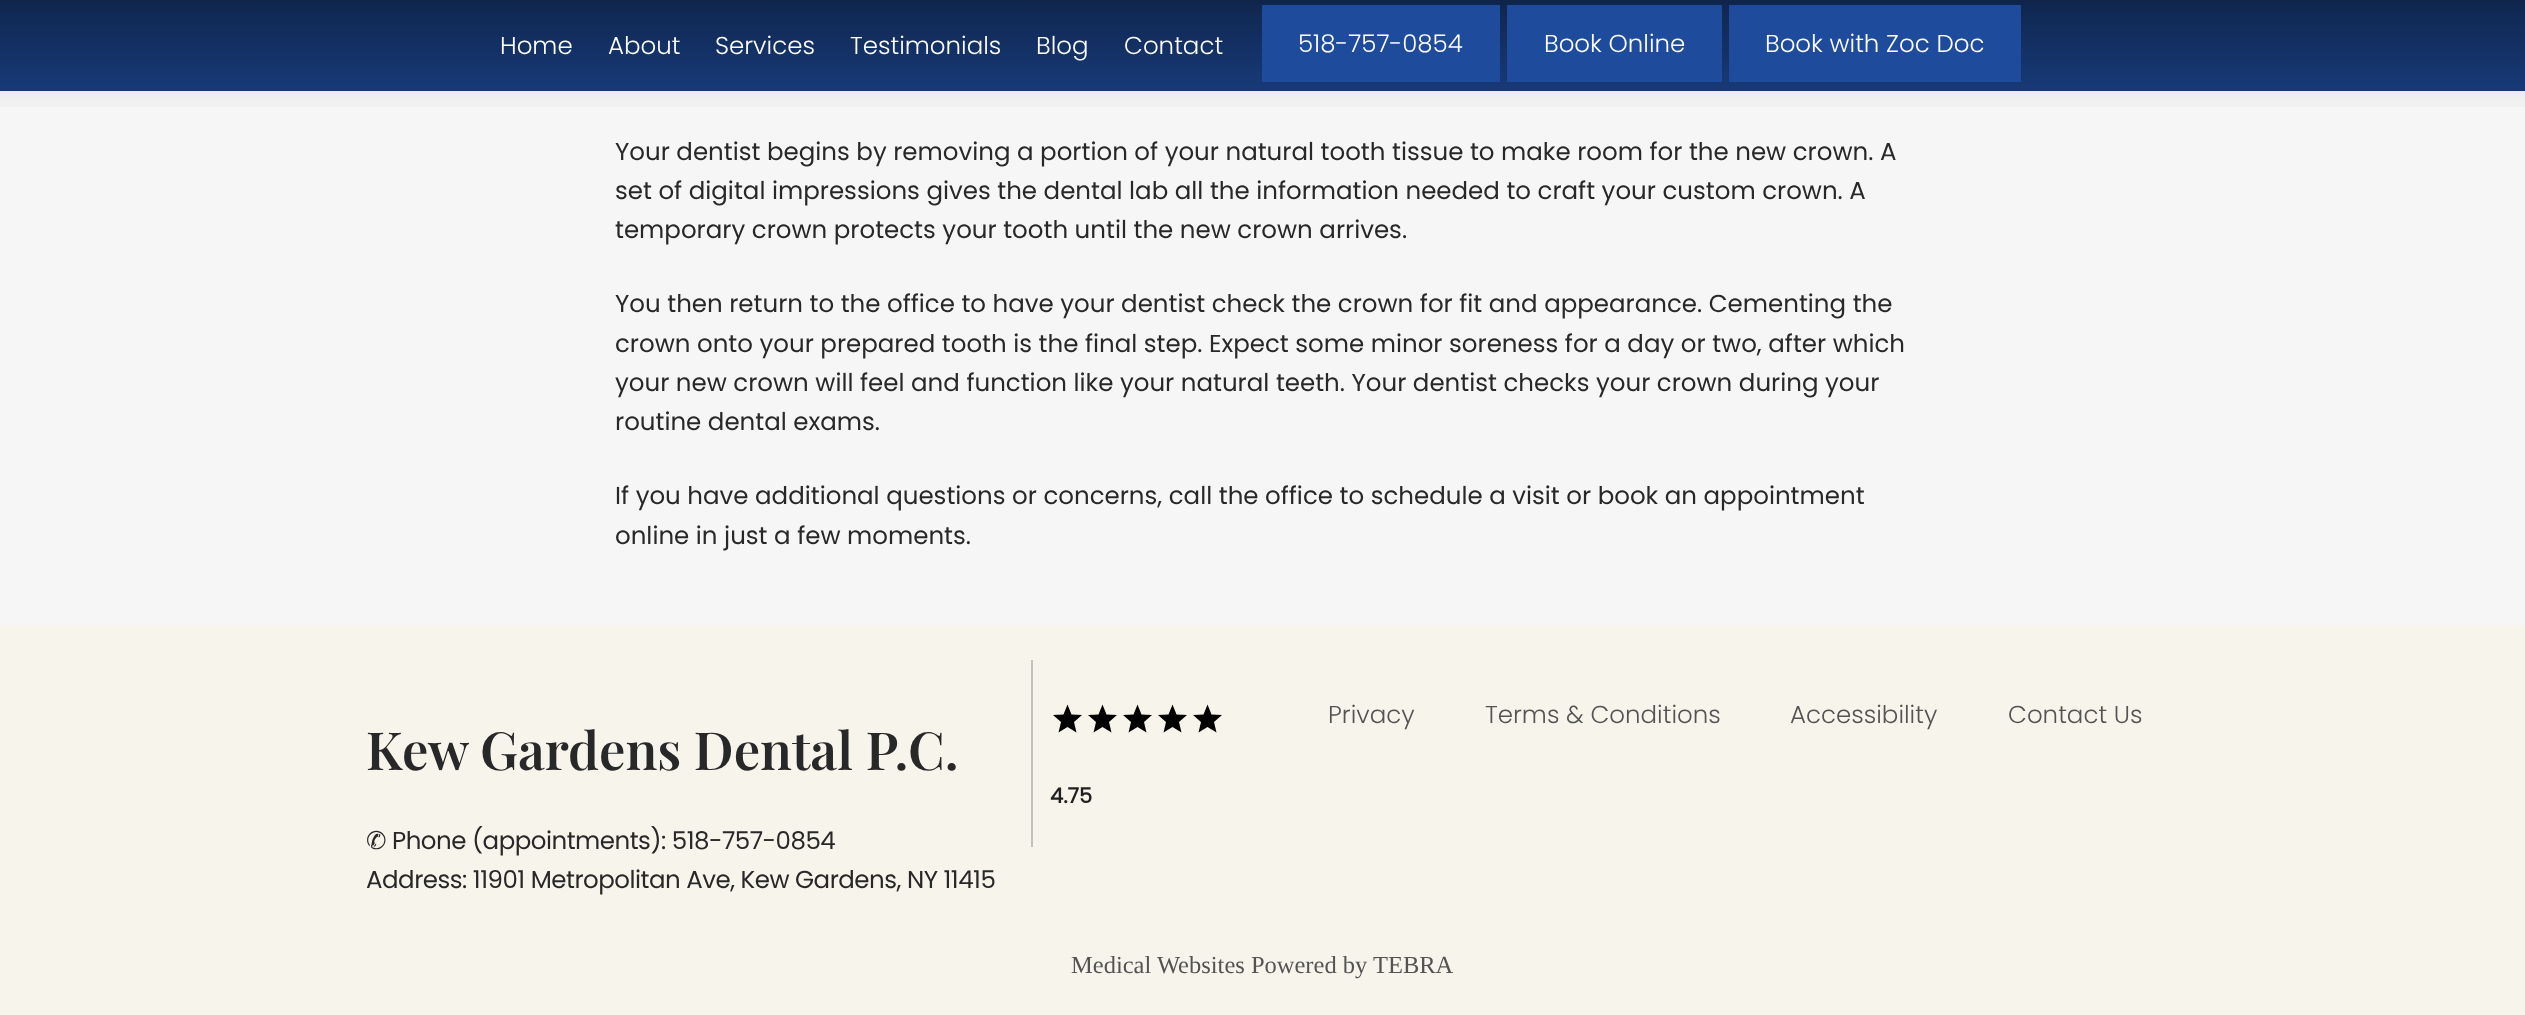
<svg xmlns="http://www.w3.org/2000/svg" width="2525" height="1015">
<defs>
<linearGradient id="g1" gradientUnits="userSpaceOnUse" x1="1263" y1="-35" x2="1263" y2="140"><stop offset="0" stop-color="#000" stop-opacity="0.49"/><stop offset="0.09" stop-color="#000" stop-opacity="0.45"/><stop offset="0.18" stop-color="#000" stop-opacity="0.42"/><stop offset="0.25" stop-color="#000" stop-opacity="0.35"/><stop offset="0.31" stop-color="#000" stop-opacity="0.29"/><stop offset="0.37" stop-color="#000" stop-opacity="0.26"/><stop offset="0.42" stop-color="#000" stop-opacity="0.23"/><stop offset="0.47" stop-color="#000" stop-opacity="0.19"/><stop offset="0.53" stop-color="#000" stop-opacity="0.16"/><stop offset="0.58" stop-color="#000" stop-opacity="0.12"/><stop offset="0.63" stop-color="#000" stop-opacity="0.09"/><stop offset="0.69" stop-color="#000" stop-opacity="0.06"/><stop offset="0.75" stop-color="#000" stop-opacity="0.03"/><stop offset="0.82" stop-color="#000" stop-opacity="0.02"/><stop offset="0.91" stop-color="#000" stop-opacity="0.01"/><stop offset="1" stop-color="#000" stop-opacity="0"/></linearGradient>
</defs>
<rect width="100%" height="100%" fill="#f6f6f6"/>
<rect width="2525" height="91" fill="#183c7c"/>
<rect width="2525" height="107" fill="url(#g1)"/>
<text x="500" y="54" style="font-family:Poppins;font-size:24.5px;font-weight:300;fill:#fff">Home</text>
<text x="608" y="54" style="font-family:Poppins;font-size:24.5px;font-weight:300;fill:#fff">About</text>
<text x="715" y="54" style="font-family:Poppins;font-size:24.5px;font-weight:300;fill:#fff">Services</text>
<text x="850" y="54" style="font-family:Poppins;font-size:24.5px;font-weight:300;fill:#fff">Testimonials</text>
<text x="1036" y="54" style="font-family:Poppins;font-size:24.5px;font-weight:300;fill:#fff">Blog</text>
<text x="1124" y="54" style="font-family:Poppins;font-size:24.5px;font-weight:300;fill:#fff">Contact</text>
<rect x="1262" y="5" width="238" height="77" fill="#1f4b9c"/>
<text x="1298" y="52" style="font-family:Poppins;font-size:24.5px;font-weight:300;fill:#fff">518-757-0854</text>
<rect x="1507" y="5" width="215" height="77" fill="#1f4b9c"/>
<text x="1544" y="52" style="font-family:Poppins;font-size:24.5px;font-weight:300;fill:#fff">Book Online</text>
<rect x="1729" y="5" width="292" height="77" fill="#1f4b9c"/>
<text x="1765" y="52" style="font-family:Poppins;font-size:24.5px;font-weight:300;fill:#fff">Book with Zoc Doc</text>
<text x="615" y="160" style="font-family:Poppins;font-size:24.5px;fill:#292828">Your dentist begins by removing a portion of your natural tooth tissue to make room for the new crown. A</text>
<text x="615" y="199" style="font-family:Poppins;font-size:24.5px;fill:#292828">set of digital impressions gives the dental lab all the information needed to craft your custom crown. A</text>
<text x="615" y="238" style="font-family:Poppins;font-size:24.5px;fill:#292828">temporary crown protects your tooth until the new crown arrives.</text>
<text x="615" y="312" style="font-family:Poppins;font-size:24.5px;fill:#292828">You then return to the office to have your dentist check the crown for fit and appearance. Cementing the</text>
<text x="615" y="352" style="font-family:Poppins;font-size:24.5px;fill:#292828">crown onto your prepared tooth is the final step. Expect some minor soreness for a day or two, after which</text>
<text x="615" y="391" style="font-family:Poppins;font-size:24.5px;fill:#292828">your new crown will feel and function like your natural teeth. Your dentist checks your crown during your</text>
<text x="615" y="430" style="font-family:Poppins;font-size:24.5px;fill:#292828">routine dental exams.</text>
<text x="615" y="504" style="font-family:Poppins;font-size:24.5px;fill:#292828">If you have additional questions or concerns, call the office to schedule a visit or book an appointment</text>
<text x="615" y="544" style="font-family:Poppins;font-size:24.5px;fill:#292828">online in just a few moments.</text>
<rect y="625" width="2525" height="390" fill="#f7f4ec"/>
<text x="1328" y="723" style="font-family:Poppins;font-size:24.5px;font-weight:300;fill:#535353">Privacy</text>
<text x="1485" y="723" style="font-family:Poppins;font-size:24.5px;font-weight:300;fill:#535353">Terms &amp; Conditions</text>
<text x="1790" y="723" style="font-family:Poppins;font-size:24.5px;font-weight:300;fill:#535353">Accessibility</text>
<text x="2008" y="723" style="font-family:Poppins;font-size:24.5px;font-weight:300;fill:#535353">Contact Us</text>
<text x="366" y="770" style="font-family:Playfair Display;font-size:52.5px;font-weight:600;fill:#292828">Kew Gardens Dental P.C.</text>
<text x="366" y="849" style="font-family:DejaVu Sans;font-size:24.5px;letter-spacing:-0.5px;fill:#292828">✆</text>
<text x="392" y="849" style="font-family:Poppins;font-size:24.5px;letter-spacing:-0.5px;fill:#292828">Phone (appointments): 518-757-0854</text>
<text x="366" y="888" style="font-family:Poppins;font-size:24.5px;letter-spacing:-0.5px;fill:#292828">Address: 11901 Metropolitan Ave, Kew Gardens, NY 11415</text>
<rect x="1031" y="660" width="2" height="187" fill="#c3c1bc"/>
<path d="M1067.5 727l9 5.5l-2.5-10.5l8-7l-10.5-.5l-4-10l-4 10l-10.5 .5l8 7l-2.5 10.5z" fill="#000"/>
<path d="M1102.5 727l9 5.5l-2.5-10.5l8-7l-10.5-.5l-4-10l-4 10l-10.5 .5l8 7l-2.5 10.5z" fill="#000"/>
<path d="M1137.5 727l9 5.5l-2.5-10.5l8-7l-10.5-.5l-4-10l-4 10l-10.5 .5l8 7l-2.5 10.5z" fill="#000"/>
<path d="M1172.5 727l9 5.5l-2.5-10.5l8-7l-10.5-.5l-4-10l-4 10l-10.5 .5l8 7l-2.5 10.5z" fill="#000"/>
<path d="M1207.5 727l9 5.5l-2.5-10.5l8-7l-10.5-.5l-4-10l-4 10l-10.5 .5l8 7l-2.5 10.5z" fill="#000"/>
<text x="1050" y="803" style="font-family:Poppins;font-size:21px;font-weight:bold;fill:#202020">4.75</text>
<text x="1071" y="973" style="font-family:Liberation Serif;font-size:24.5px;fill:#535353">Medical Websites Powered by</text>
<text x="1373" y="973" style="font-family:Liberation Serif;font-size:24.5px;fill:#535353">TEBRA</text>
</svg>
